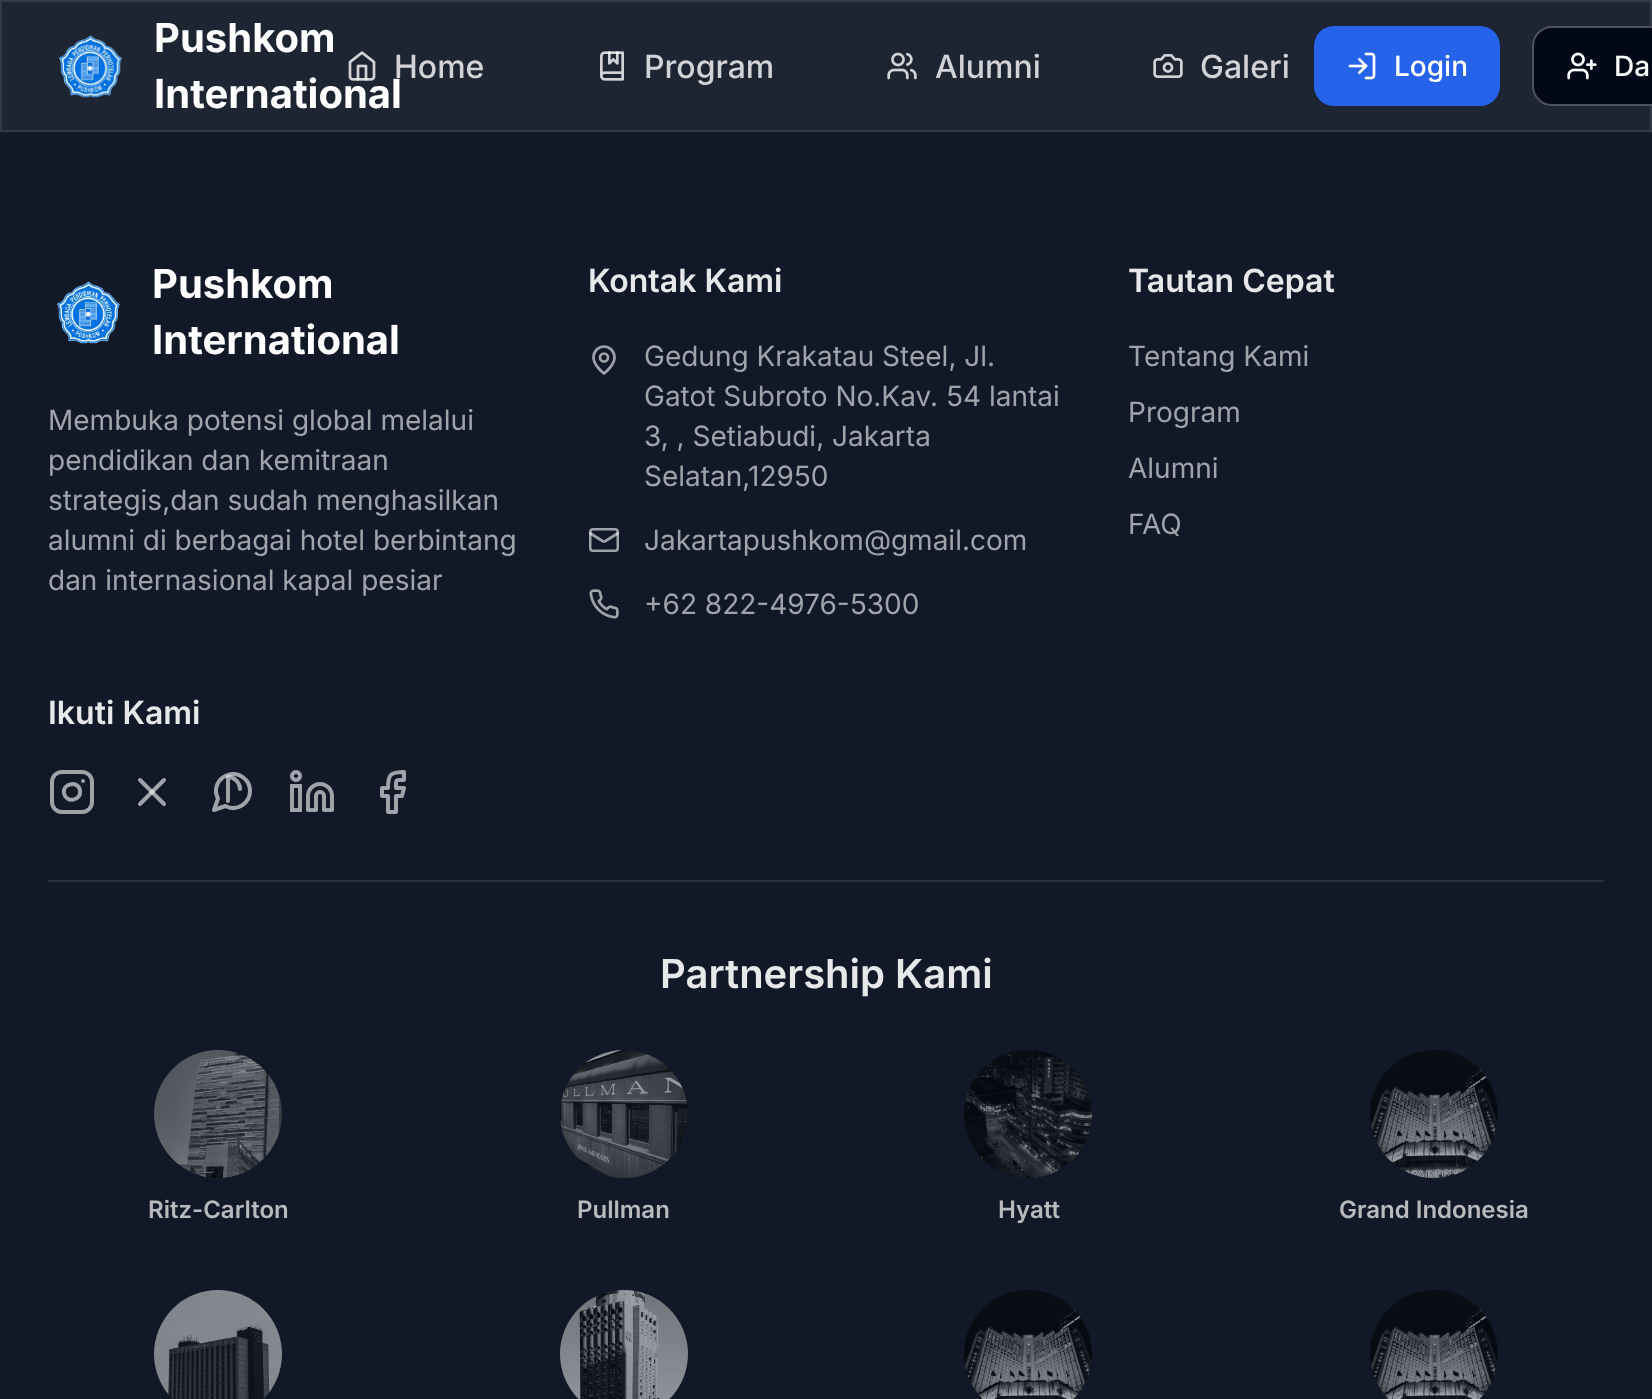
<svg xmlns="http://www.w3.org/2000/svg" width="1652" height="1399">
<rect width="100%" height="100%" fill="#111827"/>
<rect x="1" y="1" width="1650" height="130" fill="#1d2432" stroke="#343a47" stroke-width="2"/>
<image x="58" y="35" width="65" height="63" href="media/1.png"/>
<text x="154" y="52" style="font-family:Inter;font-size:40px;font-weight:bold;fill:#fff">Pushkom</text>
<text x="154" y="108" style="font-family:Inter;font-size:40px;font-weight:bold;fill:#fff">International</text>
<image x="348" y="51" width="28" height="30" href="media/2.png"/>
<text x="394" y="78" style="font-family:Inter;font-size:32px;font-weight:500;fill:#d2d3d6">Home</text>
<image x="600" y="51" width="24" height="30" href="media/3.png"/>
<text x="644" y="78" style="font-family:Inter;font-size:32px;font-weight:500;fill:#d2d3d6">Program</text>
<image x="887" y="52" width="30" height="28" href="media/4.png"/>
<text x="935" y="78" style="font-family:Inter;font-size:32px;font-weight:500;fill:#d2d3d6">Alumni</text>
<image x="1153" y="54" width="30" height="24" href="media/5.png"/>
<text x="1200" y="78" style="font-family:Inter;font-size:32px;font-weight:500;fill:#d2d3d6">Galeri</text>
<rect x="1314" y="26" width="186" height="80" rx="20" fill="#2563eb"/>
<image x="1348" y="52" width="28" height="28" href="media/6.png"/>
<text x="1394" y="76" style="font-family:Inter;font-size:28px;font-weight:500;fill:#fff">Login</text>
<rect x="1532" y="26" width="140" height="80" rx="20" fill="#020817"/>
<rect x="1533" y="27" width="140" height="78" rx="19" fill="none" stroke="#ffffff4d" stroke-width="2"/>
<image x="1567" y="52" width="30" height="28" href="media/7.png"/>
<text x="1614" y="76" style="font-family:Inter;font-size:28px;font-weight:500;fill:#fff">Da</text>
<image x="56" y="281" width="64" height="63" href="media/8.png"/>
<text x="152" y="298" style="font-family:Inter;font-size:40px;font-weight:bold;fill:#fff">Pushkom</text>
<text x="152" y="354" style="font-family:Inter;font-size:40px;font-weight:bold;fill:#fff">International</text>
<text x="48" y="430" style="font-family:Inter;font-size:28px;fill:#a0a3a9">Membuka potensi global melalui</text>
<text x="48" y="470" style="font-family:Inter;font-size:28px;fill:#a0a3a9">pendidikan dan kemitraan</text>
<text x="48" y="510" style="font-family:Inter;font-size:28px;fill:#a0a3a9">strategis,dan sudah menghasilkan</text>
<text x="48" y="550" style="font-family:Inter;font-size:28px;fill:#a0a3a9">alumni di berbagai hotel berbintang</text>
<text x="48" y="590" style="font-family:Inter;font-size:28px;fill:#a0a3a9">dan internasional kapal pesiar</text>
<text x="588" y="292" style="font-family:Inter;font-size:32px;font-weight:600;fill:#e7e8e9">Kontak Kami</text>
<path d="M614.5 357.5c0 8-10.5 16-10.5 16c0 0-10.5-8-10.5-16c0-6 4.5-11 10.5-11c6 0 10.5 5 10.5 11z" fill="none" stroke="#a0a3a9" stroke-width="2.7" stroke-linecap="round" stroke-linejoin="round"/>
<circle cx="604" cy="357.5" r="4" fill="none" stroke="#a0a3a9" stroke-width="2.7"/>
<text x="644" y="366" style="font-family:Inter;font-size:28px;fill:#a0a3a9">Gedung Krakatau Steel, Jl.</text>
<text x="644" y="406" style="font-family:Inter;font-size:28px;fill:#a0a3a9">Gatot Subroto No.Kav. 54 lantai</text>
<text x="644" y="446" style="font-family:Inter;font-size:28px;fill:#a0a3a9">3, , Setiabudi, Jakarta</text>
<text x="644" y="486" style="font-family:Inter;font-size:28px;fill:#a0a3a9">Selatan,12950</text>
<rect x="590.25" y="529.25" width="27.5" height="21.5" rx="2.75" fill="none" stroke="#a0a3a9" stroke-width="2.5"/>
<path d="M617.5 533.5l-12 7.5c-1 .5-2 .5-3 0l-12-7.5" fill="none" stroke="#ffffff99" stroke-width="2.7" stroke-linecap="round" stroke-linejoin="round"/>
<text x="644" y="550" style="font-family:Inter;font-size:28px;fill:#a0a3a9">Jakartapushkom@gmail.com</text>
<image x="589" y="589" width="30" height="30" href="media/9.png"/>
<text x="644" y="614" style="font-family:Inter;font-size:28px;fill:#a0a3a9">+62 822-4976-5300</text>
<text x="1128" y="292" style="font-family:Inter;font-size:32px;font-weight:600;fill:#e7e8e9">Tautan Cepat</text>
<text x="1128" y="366" style="font-family:Inter;font-size:28px;fill:#a0a3a9">Tentang Kami</text>
<text x="1128" y="422" style="font-family:Inter;font-size:28px;fill:#a0a3a9">Program</text>
<text x="1128" y="478" style="font-family:Inter;font-size:28px;fill:#a0a3a9">Alumni</text>
<text x="1128" y="534" style="font-family:Inter;font-size:28px;fill:#a0a3a9">FAQ</text>
<text x="48" y="724" style="font-family:Inter;font-size:32px;font-weight:600;fill:#e7e8e9">Ikuti Kami</text>
<rect x="52" y="772" width="40" height="40" rx="10" fill="none" stroke="#a0a3a9" stroke-width="4"/>
<path d="M80 790.5c1.5 10.5-14 13-16 2.5c-1.5-10 14.5-12.5 16-2.5zm3-9.5h0" fill="none" stroke="#a0a3a9" stroke-width="4" stroke-linecap="round" stroke-linejoin="round"/>
<path d="M164 780l-24 24" fill="none" stroke="#a0a3a9" stroke-width="4" stroke-linecap="round" stroke-linejoin="round"/>
<path d="M140 780l24 24" fill="none" stroke="#ffffff99" stroke-width="4" stroke-linecap="round" stroke-linejoin="round"/>
<path d="M250 791c0 12.5-13.5 21-24.5 15l-11.5 4l4-11.5c-9-17 14-33.5 27.5-19c3 3 4.5 7 4.5 11.5z" fill="none" stroke="#a0a3a9" stroke-width="4" stroke-linecap="round" stroke-linejoin="round"/>
<path d="M240 789c0-6.5-5.5-12-12-12v24" fill="none" stroke="#ffffff99" stroke-width="4" stroke-linecap="round" stroke-linejoin="round"/>
<image x="290" y="770" width="44" height="42" href="media/10.png"/>
<path d="M404 772c-13.5 0-16 2.5-16 16h-6v8h6v16h8v-16h6l2-8h-8c0-9-1-8 8-8z" fill="none" stroke="#a0a3a9" stroke-width="4" stroke-linecap="round" stroke-linejoin="round"/>
<rect x="48" y="880" width="1556" height="2" fill="#292f3d"/>
<text x="660" y="988" style="font-family:Inter;font-size:40px;font-weight:600;fill:#e7e8e9">Partnership Kami</text>
<image x="154" y="1050" width="128" height="128" href="media/11.png"/>
<text x="148" y="1218" style="font-family:Inter;font-size:24px;font-weight:600;fill:#b8babe">Ritz-Carlton</text>
<image x="560" y="1050" width="128" height="128" href="media/12.png"/>
<text x="577" y="1218" style="font-family:Inter;font-size:24px;font-weight:600;fill:#b8babe">Pullman</text>
<image x="964" y="1050" width="128" height="128" href="media/13.png"/>
<text x="998" y="1218" style="font-family:Inter;font-size:24px;font-weight:600;fill:#b8babe">Hyatt</text>
<image x="1370" y="1050" width="128" height="128" href="media/14.png"/>
<text x="1339" y="1218" style="font-family:Inter;font-size:24px;font-weight:600;fill:#b8babe">Grand Indonesia</text>
<image x="154" y="1290" width="128" height="109" href="media/15.png"/>
<image x="560" y="1290" width="128" height="109" href="media/16.png"/>
<image x="964" y="1290" width="128" height="109" href="media/17.png"/>
<image x="1370" y="1290" width="128" height="109" href="media/18.png"/>
</svg>
